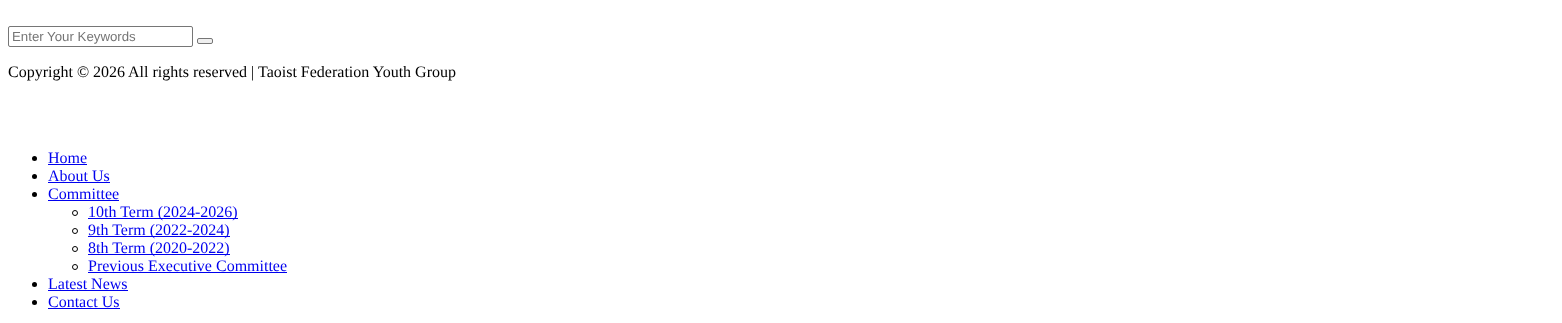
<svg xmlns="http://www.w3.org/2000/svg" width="1562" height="323">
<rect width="100%" height="100%" fill="#fff"/>
<rect x="8.5" y="26.5" width="184" height="20" rx="1.5" fill="none" stroke="#767676"/>
<text x="12" y="41" style="font-family:Liberation Sans;font-size:13.25px;fill:#757575">Enter Your Keywords</text>
<rect x="197.5" y="38.5" width="15" height="5" rx="1.5" fill="#efefef" stroke="#767676"/>
<text x="8" y="77" style="font-family:Liberation Serif;font-size:16px;fill:#000">Copyright © 2026</text>
<text x="128" y="77" style="font-family:Liberation Serif;font-size:16px;fill:#000">All rights reserved | Taoist Federation Youth Group</text>
<circle cx="34.5" cy="158.5" r="2.5" fill="#000"/>
<text x="48" y="163" style="font-family:Liberation Serif;font-size:16px;fill:#00e">Home</text>
<rect x="48" y="164" width="39" height="1" fill="#00e"/>
<circle cx="34.5" cy="176.5" r="2.5" fill="#000"/>
<text x="48" y="181" style="font-family:Liberation Serif;font-size:16px;fill:#00e">About Us</text>
<rect x="48" y="182" width="62" height="1" fill="#00e"/>
<circle cx="34.5" cy="194.5" r="2.5" fill="#000"/>
<text x="48" y="199" style="font-family:Liberation Serif;font-size:16px;fill:#00e">Committee</text>
<rect x="48" y="200" width="71" height="1" fill="#00e"/>
<circle cx="75" cy="213" r="2.5" fill="none" stroke="#000"/>
<rect x="88" y="218" width="150" height="1" fill="#00e"/>
<text x="88" y="217" style="font-family:Liberation Serif;font-size:16px;fill:#00e">10th Term (2024-2026)</text>
<circle cx="75" cy="231" r="2.5" fill="none" stroke="#000"/>
<rect x="88" y="236" width="142" height="1" fill="#00e"/>
<text x="88" y="235" style="font-family:Liberation Serif;font-size:16px;fill:#00e">9th Term (2022-2024)</text>
<circle cx="75" cy="249" r="2.5" fill="none" stroke="#000"/>
<rect x="88" y="254" width="142" height="1" fill="#00e"/>
<text x="88" y="253" style="font-family:Liberation Serif;font-size:16px;fill:#00e">8th Term (2020-2022)</text>
<circle cx="75" cy="267" r="2.5" fill="none" stroke="#000"/>
<text x="88" y="271" style="font-family:Liberation Serif;font-size:16px;fill:#00e">Previous Executive Committee</text>
<rect x="88" y="272" width="199" height="1" fill="#00e"/>
<circle cx="34.5" cy="284.5" r="2.5" fill="#000"/>
<text x="48" y="289" style="font-family:Liberation Serif;font-size:16px;fill:#00e">Latest News</text>
<rect x="48" y="290" width="80" height="1" fill="#00e"/>
<circle cx="34.5" cy="302.5" r="2.5" fill="#000"/>
<text x="48" y="307" style="font-family:Liberation Serif;font-size:16px;fill:#00e">Contact Us</text>
<rect x="48" y="308" width="72" height="1" fill="#00e"/>
</svg>
